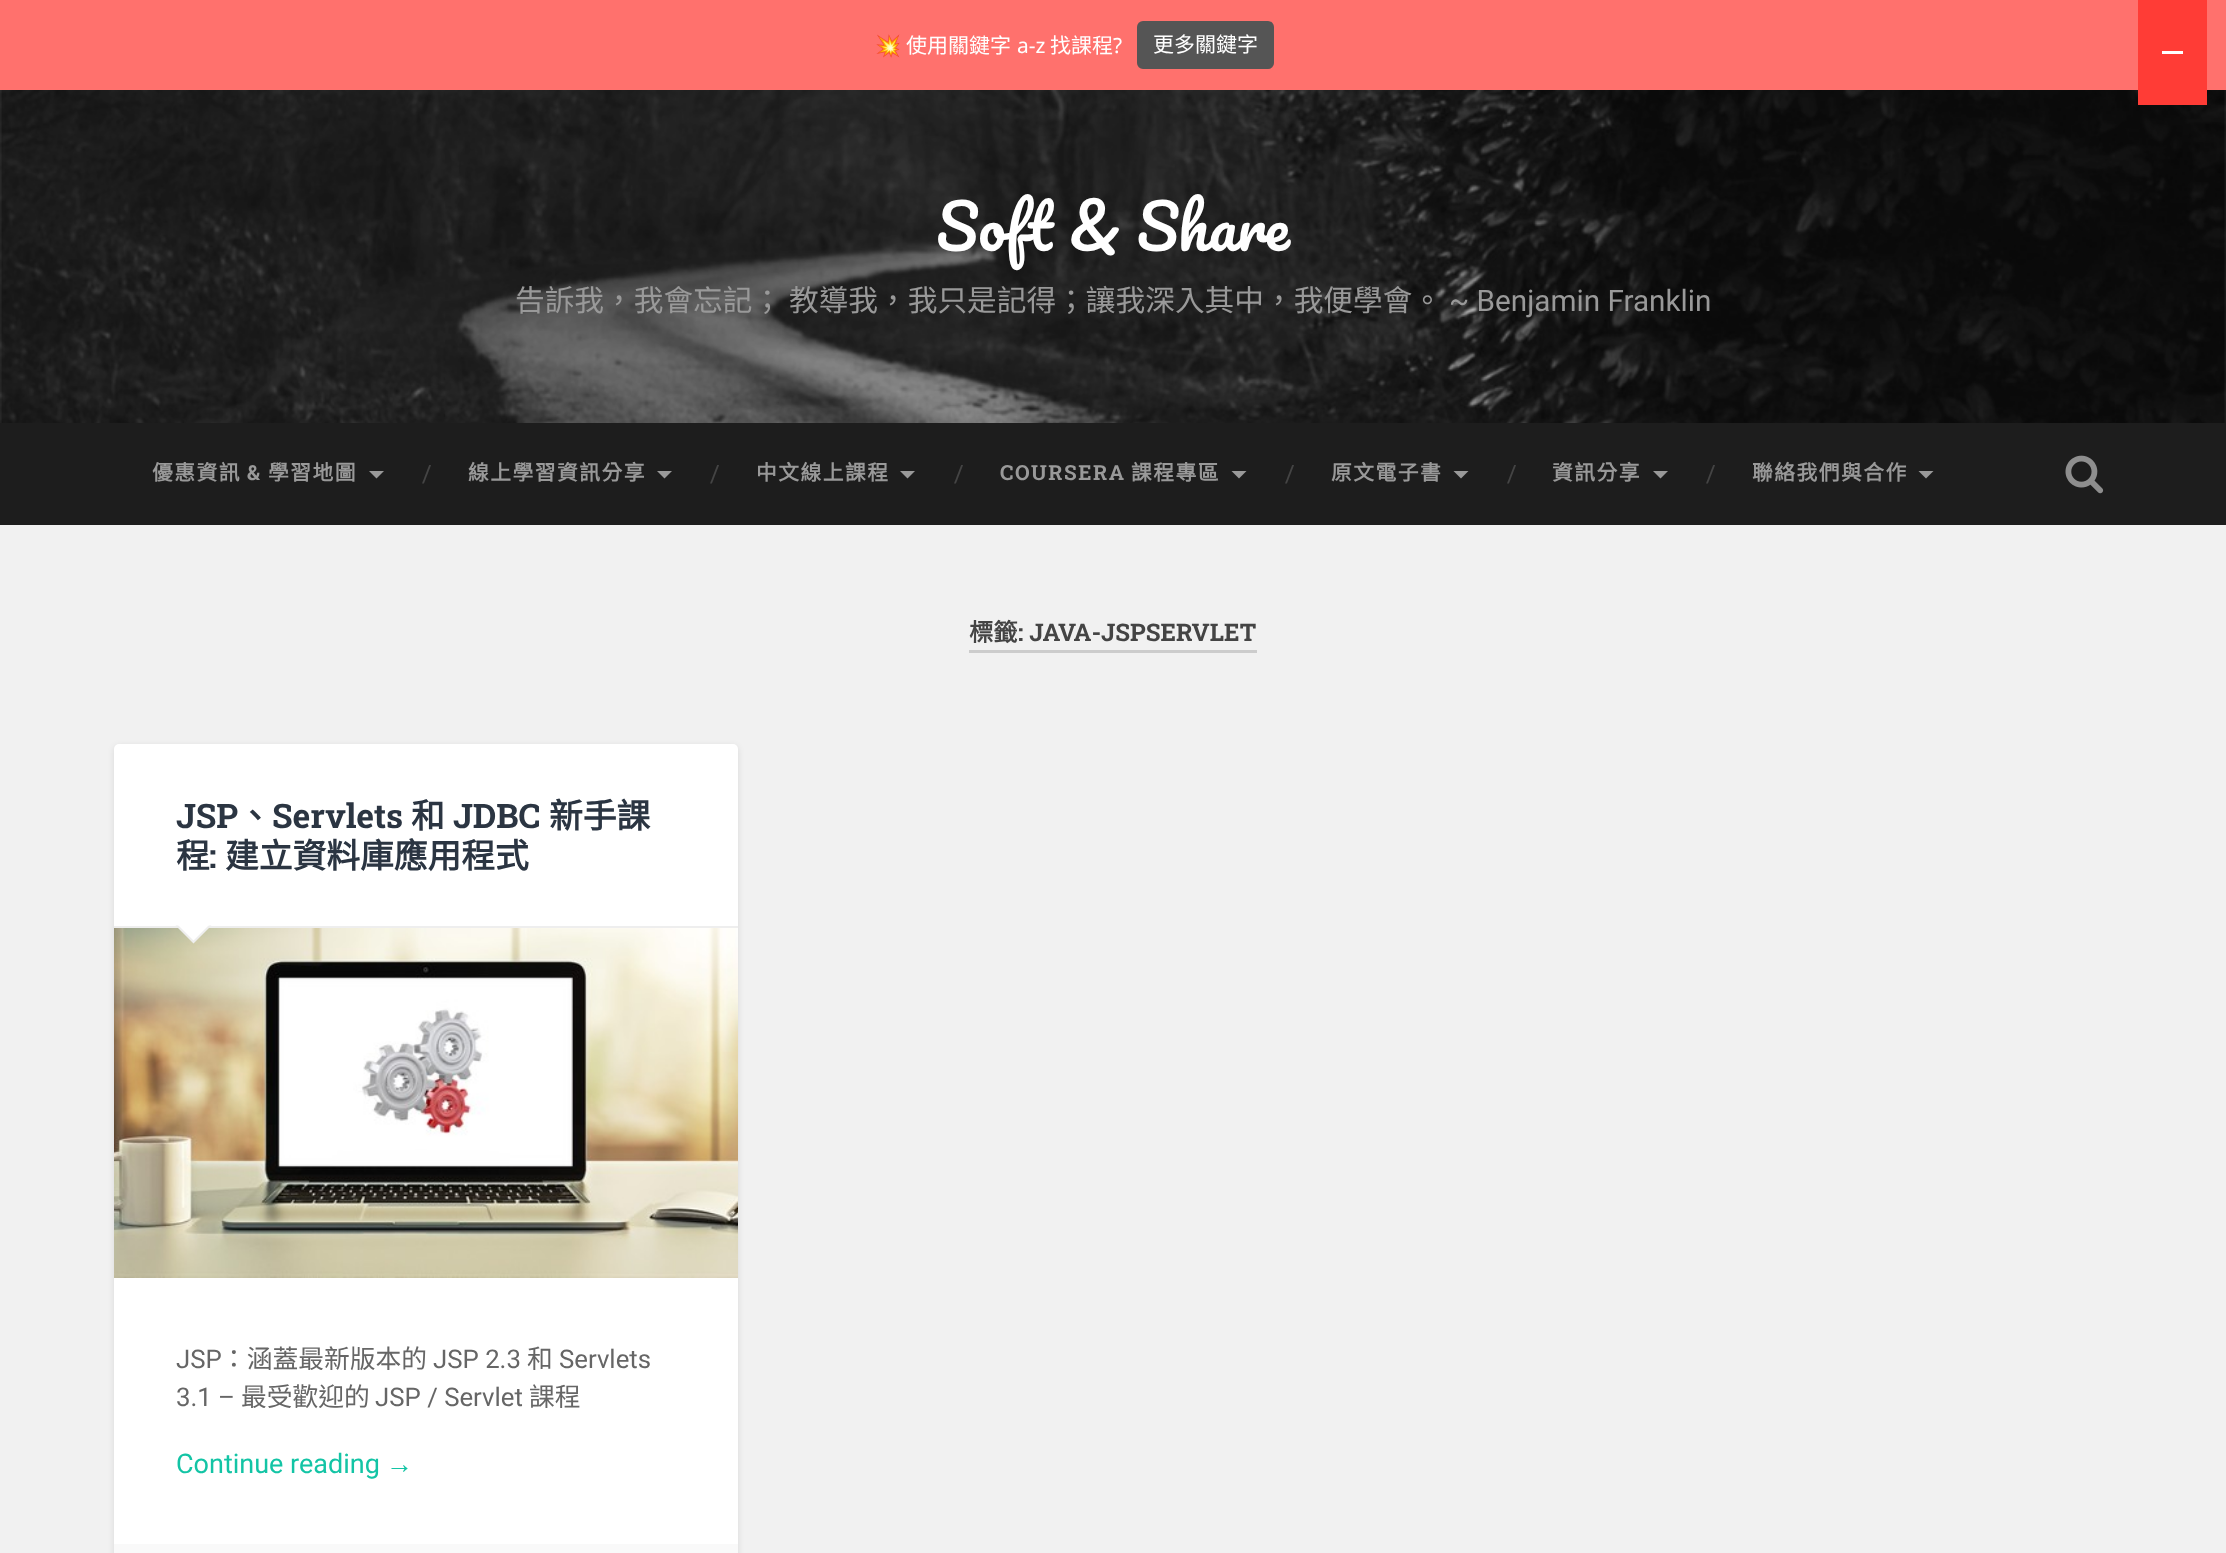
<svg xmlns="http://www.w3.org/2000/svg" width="2226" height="1553">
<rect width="100%" height="100%" fill="#f1f1f1"/>
<rect width="2226" height="90" fill="#ff716d"/>
<text x="875" y="53" style="font-family:Noto Color Emoji;font-size:21px;fill:#fff">💥</text>
<text x="906" y="53" style="font-family:Noto Sans CJK TC;font-size:21px;fill:#fff">使用關鍵字</text>
<text x="1017" y="53" style="font-family:Noto Sans;font-size:21px;fill:#fff">a-z</text>
<text x="1050" y="53" style="font-family:Noto Sans CJK TC;font-size:21px;fill:#fff">找課程</text>
<text x="1113" y="53" style="font-family:Noto Sans;font-size:21px;fill:#fff">?</text>
<rect x="1137" y="21" width="137" height="48" rx="6" fill="#555"/>
<text x="1153" y="52" style="font-family:Noto Sans CJK TC;font-size:21px;fill:#fff">更多關鍵字</text>
<image x="0" y="90" width="2226" height="333" href="media/1.png"/>
<rect x="2138" width="69" height="105" fill="#ff3c36"/>
<rect x="2162" y="51" width="21" height="3" fill="#fff"/>
<text x="936" y="251" style="font-family:Pacifico;font-size:60.75px;fill:#fff">Soft &amp; Share</text>
<text x="515" y="311" style="font-family:Noto Sans CJK TC;font-size:29.7px;fill:#999">告訴我，我會忘記；</text>
<text x="789" y="311" style="font-family:Noto Sans CJK TC;font-size:29.7px;fill:#999">教導我，我只是記得；讓我深入其中，我便學會。</text>
<text x="1449" y="311" style="font-family:Roboto;font-size:29.7px;fill:#999">~ Benjamin Franklin</text>
<rect y="423" width="2226" height="102" fill="#1d1d1d"/>
<text x="152" y="480" style="font-family:Noto Sans CJK TC;font-size:20.75px;font-weight:bold;letter-spacing:1.5px;fill:#999">優惠資訊</text>
<text x="247" y="480" style="font-family:Roboto Slab;font-size:20.75px;font-weight:bold;letter-spacing:1.5px;fill:#999">&amp;</text>
<text x="268" y="480" style="font-family:Noto Sans CJK TC;font-size:20.75px;font-weight:bold;letter-spacing:1.5px;fill:#999">學習地圖</text>
<path d="M369 471h15l-7.5 7.5z" fill="#999"/>
<text x="422" y="482" style="font-family:Roboto Slab;font-size:24px;fill:#444">/</text>
<text x="468" y="480" style="font-family:Noto Sans CJK TC;font-size:20.75px;font-weight:bold;letter-spacing:1.5px;fill:#999">線上學習資訊分享</text>
<path d="M657 471h15l-7.5 7.5z" fill="#999"/>
<text x="710" y="482" style="font-family:Roboto Slab;font-size:24px;fill:#444">/</text>
<text x="756" y="480" style="font-family:Noto Sans CJK TC;font-size:20.75px;font-weight:bold;letter-spacing:1.5px;fill:#999">中文線上課程</text>
<path d="M900 471h15l-7.5 7.5z" fill="#999"/>
<text x="954" y="482" style="font-family:Roboto Slab;font-size:24px;fill:#444">/</text>
<text x="1000" y="480" style="font-family:Roboto Slab;font-size:20.75px;font-weight:bold;letter-spacing:1.5px;fill:#999">COURSERA</text>
<text x="1131" y="480" style="font-family:Noto Sans CJK TC;font-size:20.75px;font-weight:bold;letter-spacing:1.5px;fill:#999">課程專區</text>
<path d="M1231.5 471h15l-7.5 7.5z" fill="#999"/>
<text x="1285" y="482" style="font-family:Roboto Slab;font-size:24px;fill:#444">/</text>
<text x="1331" y="480" style="font-family:Noto Sans CJK TC;font-size:20.75px;font-weight:bold;letter-spacing:1.5px;fill:#999">原文電子書</text>
<path d="M1453.5 471h15l-7.5 7.5z" fill="#999"/>
<text x="1507" y="482" style="font-family:Roboto Slab;font-size:24px;fill:#444">/</text>
<text x="1552" y="480" style="font-family:Noto Sans CJK TC;font-size:20.75px;font-weight:bold;letter-spacing:1.5px;fill:#999">資訊分享</text>
<path d="M1653 471h15l-7.5 7.5z" fill="#999"/>
<text x="1706" y="482" style="font-family:Roboto Slab;font-size:24px;fill:#444">/</text>
<text x="1752" y="480" style="font-family:Noto Sans CJK TC;font-size:20.75px;font-weight:bold;letter-spacing:1.5px;fill:#999">聯絡我們與合作</text>
<path d="M1918.5 471h15l-7.5 7.5z" fill="#999"/>
<image x="2065" y="455" width="39" height="39" href="media/2.png"/>
<rect x="969" y="650" width="288" height="3" fill="#ccc"/>
<text x="969" y="641" style="font-family:Noto Sans CJK TC;font-size:24.25px;font-weight:bold;fill:#444">標籤</text>
<text x="1018" y="641" style="font-family:Roboto Slab;font-size:24.25px;font-weight:bold;fill:#444">: JAVA-JSPSERVLET</text>
<rect x="114" y="746" width="624" height="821" rx="5" fill="#0000001a" filter="blur(3px)"/>
<rect x="114" y="744" width="624" height="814" rx="5" fill="#fff"/>
<rect x="114" y="926" width="624" height="2" fill="#eee"/>
<text x="176" y="828" style="font-family:Roboto Slab;font-size:33.75px;font-weight:bold;fill:#2b3542">JSP</text>
<text x="238" y="828" style="font-family:Noto Sans CJK TC;font-size:33.75px;font-weight:bold;fill:#2b3542">、</text>
<text x="272" y="828" style="font-family:Roboto Slab;font-size:33.75px;font-weight:bold;fill:#2b3542">Servlets</text>
<text x="411" y="828" style="font-family:Noto Sans CJK TC;font-size:33.75px;font-weight:bold;fill:#2b3542">和</text>
<text x="453" y="828" style="font-family:Roboto Slab;font-size:33.75px;font-weight:bold;fill:#2b3542">JDBC</text>
<text x="549" y="828" style="font-family:Noto Sans CJK TC;font-size:33.75px;font-weight:bold;fill:#2b3542">新手課</text>
<text x="176" y="868" style="font-family:Noto Sans CJK TC;font-size:33.75px;font-weight:bold;fill:#2b3542">程</text>
<text x="209" y="868" style="font-family:Roboto Slab;font-size:33.75px;font-weight:bold;fill:#2b3542">:</text>
<text x="225" y="868" style="font-family:Noto Sans CJK TC;font-size:33.75px;font-weight:bold;fill:#2b3542">建立資料庫應用程式</text>
<image x="114" y="928" width="624" height="350" href="media/3.png"/>
<path d="M175.5 925.5h36l-18 18z" fill="#eee"/>
<path d="M177 924h33l-16.5 16.5z" fill="#fff"/>
<text x="176" y="1368" style="font-family:Roboto;font-size:25.75px;fill:#666">JSP</text>
<text x="221" y="1368" style="font-family:Noto Sans CJK TC;font-size:25.75px;fill:#666">：涵蓋最新版本的</text>
<text x="433" y="1368" style="font-family:Roboto;font-size:25.75px;fill:#666">JSP 2.3</text>
<text x="527" y="1368" style="font-family:Noto Sans CJK TC;font-size:25.75px;fill:#666">和</text>
<text x="559" y="1368" style="font-family:Roboto;font-size:25.75px;fill:#666">Servlets</text>
<text x="176" y="1406" style="font-family:Roboto;font-size:25.75px;fill:#666">3.1 –</text>
<text x="241" y="1406" style="font-family:Noto Sans CJK TC;font-size:25.75px;fill:#666">最受歡迎的</text>
<text x="375" y="1406" style="font-family:Roboto;font-size:25.75px;fill:#666">JSP / Servlet</text>
<text x="529" y="1406" style="font-family:Noto Sans CJK TC;font-size:25.75px;fill:#666">課程</text>
<text x="176" y="1473" style="font-family:Roboto;font-size:27px;fill:#13c4a5">Continue reading</text>
<text x="386" y="1473" style="font-family:Liberation Sans;font-size:27px;fill:#13c4a5">→</text>
<rect x="114" y="1544" width="624" height="9" fill="#f9f9f9"/>
</svg>
